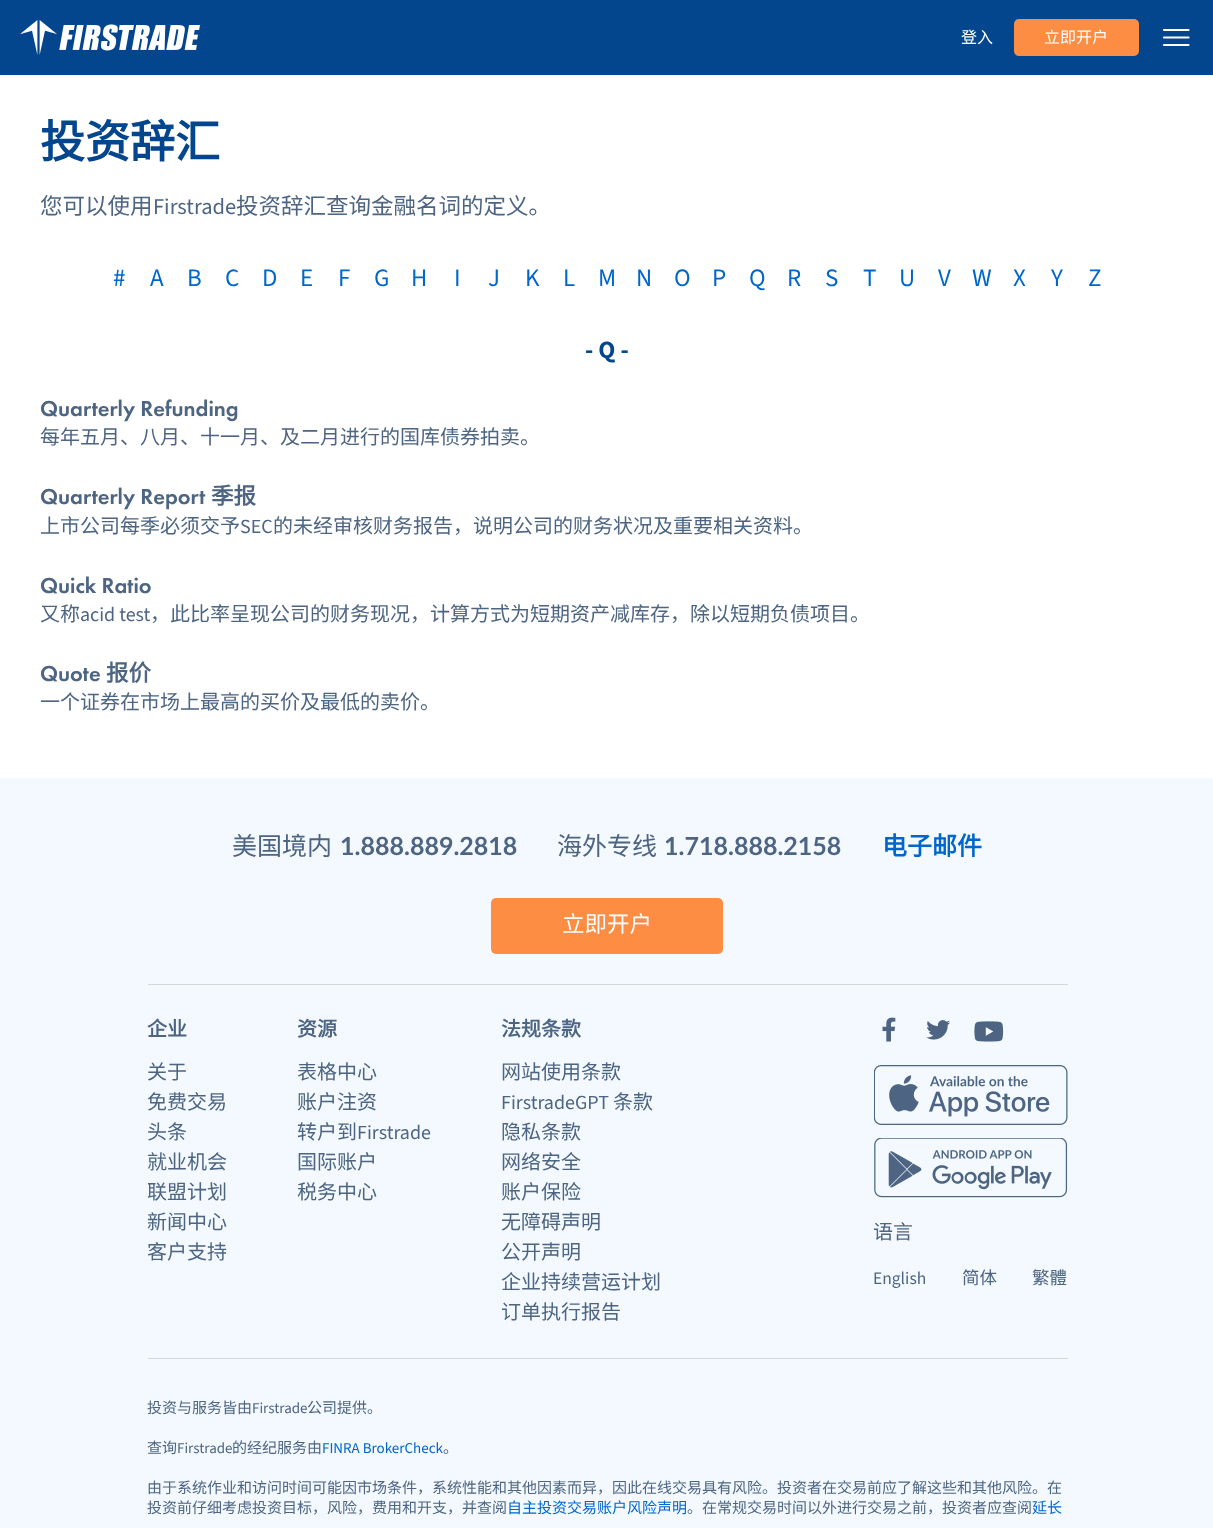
<svg xmlns="http://www.w3.org/2000/svg" width="1213" height="1528">
<rect width="100%" height="100%" fill="#fff"/>
<rect width="1213" height="75" fill="#03468e"/>
<image x="20" y="20" width="180" height="35" href="media/1.png"/>
<text x="961" y="43" style="font-family:Noto Sans CJK SC;font-size:16px;fill:#fff">登入</text>
<rect x="1014" y="19" width="125" height="37" rx="5" fill="#fc8d42"/>
<text x="1044" y="43" style="font-family:Noto Sans CJK SC;font-size:16px;fill:#fff">立即开户</text>
<path d="M1164 30h24.5m-24.5 7.5h24.5m-24.5 7.5h24.5" fill="none" stroke="#fff" stroke-width="2.2" stroke-linecap="round" stroke-linejoin="round"/>
<text x="40" y="158" style="font-family:Noto Sans CJK SC;font-size:45px;font-weight:bold;fill:#03468e">投资辞汇</text>
<text x="40" y="214" style="font-family:Noto Sans CJK SC;font-size:22.5px;fill:#4d6582">您可以使用</text>
<text x="153" y="214" style="font-family:'Source Sans 3';font-size:22.5px;fill:#4d6582">Firstrade</text>
<text x="236" y="214" style="font-family:Noto Sans CJK SC;font-size:22.5px;fill:#4d6582">投资辞汇查询金融名词的定义。</text>
<text x="113" y="286" style="font-family:'Source Sans 3';font-size:25px;fill:#06c">#</text>
<text x="150" y="286" style="font-family:'Source Sans 3';font-size:25px;fill:#06c">A</text>
<text x="187" y="286" style="font-family:'Source Sans 3';font-size:25px;fill:#06c">B</text>
<text x="225" y="286" style="font-family:'Source Sans 3';font-size:25px;fill:#06c">C</text>
<text x="262" y="286" style="font-family:'Source Sans 3';font-size:25px;fill:#06c">D</text>
<text x="300" y="286" style="font-family:'Source Sans 3';font-size:25px;fill:#06c">E</text>
<text x="338" y="286" style="font-family:'Source Sans 3';font-size:25px;fill:#06c">F</text>
<text x="374" y="286" style="font-family:'Source Sans 3';font-size:25px;fill:#06c">G</text>
<text x="411" y="286" style="font-family:'Source Sans 3';font-size:25px;fill:#06c">H</text>
<text x="454" y="286" style="font-family:'Source Sans 3';font-size:25px;fill:#06c">I</text>
<text x="488" y="286" style="font-family:'Source Sans 3';font-size:25px;fill:#06c">J</text>
<text x="525" y="286" style="font-family:'Source Sans 3';font-size:25px;fill:#06c">K</text>
<text x="563" y="286" style="font-family:'Source Sans 3';font-size:25px;fill:#06c">L</text>
<text x="598" y="286" style="font-family:'Source Sans 3';font-size:25px;fill:#06c">M</text>
<text x="636" y="286" style="font-family:'Source Sans 3';font-size:25px;fill:#06c">N</text>
<text x="674" y="286" style="font-family:'Source Sans 3';font-size:25px;fill:#06c">O</text>
<text x="712" y="286" style="font-family:'Source Sans 3';font-size:25px;fill:#06c">P</text>
<text x="749" y="286" style="font-family:'Source Sans 3';font-size:25px;fill:#06c">Q</text>
<text x="787" y="286" style="font-family:'Source Sans 3';font-size:25px;fill:#06c">R</text>
<text x="825" y="286" style="font-family:'Source Sans 3';font-size:25px;fill:#06c">S</text>
<text x="863" y="286" style="font-family:'Source Sans 3';font-size:25px;fill:#06c">T</text>
<text x="899" y="286" style="font-family:'Source Sans 3';font-size:25px;fill:#06c">U</text>
<text x="938" y="286" style="font-family:'Source Sans 3';font-size:25px;fill:#06c">V</text>
<text x="972" y="286" style="font-family:'Source Sans 3';font-size:25px;fill:#06c">W</text>
<text x="1013" y="286" style="font-family:'Source Sans 3';font-size:25px;fill:#06c">X</text>
<text x="1051" y="286" style="font-family:'Source Sans 3';font-size:25px;fill:#06c">Y</text>
<text x="1088" y="286" style="font-family:'Source Sans 3';font-size:25px;fill:#06c">Z</text>
<text x="585" y="358" style="font-family:'Source Sans 3';font-size:25px;font-weight:bold;fill:#03468e">- Q -</text>
<text x="40" y="416" style="font-family:Futura PT;font-size:22.5px;font-weight:500;fill:#4d6582">Quarterly Refunding</text>
<text x="40" y="444" style="font-family:Noto Sans CJK SC;font-size:20px;fill:#4d6582">每年五月、八月、十一月、及二月进行的国库债券拍卖。</text>
<text x="40" y="504" style="font-family:Futura PT;font-size:22.5px;font-weight:500;fill:#4d6582">Quarterly Report</text>
<text x="211" y="504" style="font-family:Noto Sans CJK SC;font-size:22.5px;font-weight:bold;fill:#4d6582">季报</text>
<text x="40" y="533" style="font-family:Noto Sans CJK SC;font-size:20px;fill:#4d6582">上市公司每季必须交予</text>
<text x="240" y="533" style="font-family:'Source Sans 3';font-size:20px;fill:#4d6582">SEC</text>
<text x="273" y="533" style="font-family:Noto Sans CJK SC;font-size:20px;fill:#4d6582">的未经审核财务报告，说明公司的财务状况及重要相关资料。</text>
<text x="40" y="593" style="font-family:Futura PT;font-size:22.5px;font-weight:500;fill:#4d6582">Quick Ratio</text>
<text x="40" y="621" style="font-family:Noto Sans CJK SC;font-size:20px;fill:#4d6582">又称</text>
<text x="80" y="621" style="font-family:'Source Sans 3';font-size:20px;fill:#4d6582">acid test</text>
<text x="150" y="621" style="font-family:Noto Sans CJK SC;font-size:20px;fill:#4d6582">，此比率呈现公司的财务现况，计算方式为短期资产减库存，除以短期负债项目。</text>
<text x="40" y="681" style="font-family:Futura PT;font-size:22.5px;font-weight:500;fill:#4d6582">Quote</text>
<text x="106" y="681" style="font-family:Noto Sans CJK SC;font-size:22.5px;font-weight:bold;fill:#4d6582">报价</text>
<text x="40" y="709" style="font-family:Noto Sans CJK SC;font-size:20px;fill:#4d6582">一个证券在市场上最高的买价及最低的卖价。</text>
<rect y="778" width="1213" height="750" fill="#f3f9ff"/>
<text x="232" y="855" style="font-family:Noto Sans CJK SC;font-size:25px;fill:#4d6582">美国境内</text>
<text x="340" y="855" style="font-family:Lato;font-size:25px;font-weight:bold;fill:#4d6582">1.888.889.2818</text>
<text x="557" y="855" style="font-family:Noto Sans CJK SC;font-size:25px;fill:#4d6582">海外专线</text>
<text x="664" y="855" style="font-family:Lato;font-size:25px;font-weight:bold;fill:#4d6582">1.718.888.2158</text>
<text x="882" y="855" style="font-family:Noto Sans CJK SC;font-size:25px;font-weight:bold;fill:#06c">电子邮件</text>
<rect x="491" y="898" width="232" height="56" rx="5" fill="#fc8d42"/>
<text x="562" y="932" style="font-family:Noto Sans CJK SC;font-size:22.5px;fill:#fff">立即开户</text>
<rect x="148" y="984" width="920" height="1" fill="#d3d6db"/>
<text x="147" y="1036" style="font-family:Noto Sans CJK SC;font-size:20px;font-weight:bold;fill:#4d6582">企业</text>
<text x="147" y="1079" style="font-family:Noto Sans CJK SC;font-size:20px;fill:#4d6582">关于</text>
<text x="147" y="1109" style="font-family:Noto Sans CJK SC;font-size:20px;fill:#4d6582">免费交易</text>
<text x="147" y="1139" style="font-family:Noto Sans CJK SC;font-size:20px;fill:#4d6582">头条</text>
<text x="147" y="1169" style="font-family:Noto Sans CJK SC;font-size:20px;fill:#4d6582">就业机会</text>
<text x="147" y="1199" style="font-family:Noto Sans CJK SC;font-size:20px;fill:#4d6582">联盟计划</text>
<text x="147" y="1229" style="font-family:Noto Sans CJK SC;font-size:20px;fill:#4d6582">新闻中心</text>
<text x="147" y="1259" style="font-family:Noto Sans CJK SC;font-size:20px;fill:#4d6582">客户支持</text>
<text x="297" y="1036" style="font-family:Noto Sans CJK SC;font-size:20px;font-weight:bold;fill:#4d6582">资源</text>
<text x="297" y="1079" style="font-family:Noto Sans CJK SC;font-size:20px;fill:#4d6582">表格中心</text>
<text x="297" y="1109" style="font-family:Noto Sans CJK SC;font-size:20px;fill:#4d6582">账户注资</text>
<text x="297" y="1139" style="font-family:Noto Sans CJK SC;font-size:20px;fill:#4d6582">转户到</text>
<text x="357" y="1139" style="font-family:'Source Sans 3';font-size:20px;fill:#4d6582">Firstrade</text>
<text x="297" y="1169" style="font-family:Noto Sans CJK SC;font-size:20px;fill:#4d6582">国际账户</text>
<text x="297" y="1199" style="font-family:Noto Sans CJK SC;font-size:20px;fill:#4d6582">税务中心</text>
<text x="501" y="1036" style="font-family:Noto Sans CJK SC;font-size:20px;font-weight:bold;fill:#4d6582">法规条款</text>
<text x="501" y="1079" style="font-family:Noto Sans CJK SC;font-size:20px;fill:#4d6582">网站使用条款</text>
<text x="501" y="1109" style="font-family:'Source Sans 3';font-size:20px;fill:#4d6582">FirstradeGPT</text>
<text x="613" y="1109" style="font-family:Noto Sans CJK SC;font-size:20px;fill:#4d6582">条款</text>
<text x="501" y="1139" style="font-family:Noto Sans CJK SC;font-size:20px;fill:#4d6582">隐私条款</text>
<text x="501" y="1169" style="font-family:Noto Sans CJK SC;font-size:20px;fill:#4d6582">网络安全</text>
<text x="501" y="1199" style="font-family:Noto Sans CJK SC;font-size:20px;fill:#4d6582">账户保险</text>
<text x="501" y="1229" style="font-family:Noto Sans CJK SC;font-size:20px;fill:#4d6582">无障碍声明</text>
<text x="501" y="1259" style="font-family:Noto Sans CJK SC;font-size:20px;fill:#4d6582">公开声明</text>
<text x="501" y="1289" style="font-family:Noto Sans CJK SC;font-size:20px;fill:#4d6582">企业持续营运计划</text>
<text x="501" y="1319" style="font-family:Noto Sans CJK SC;font-size:20px;fill:#4d6582">订单执行报告</text>
<image x="882" y="1017" width="14" height="25" href="media/2.png"/>
<image x="926" y="1020" width="24" height="20" href="media/3.png"/>
<image x="974" y="1021" width="30" height="21" href="media/4.png"/>
<image x="874" y="1065" width="194" height="60" href="media/5.png"/>
<image x="874" y="1138" width="194" height="60" href="media/6.png"/>
<text x="873" y="1239" style="font-family:Noto Sans CJK SC;font-size:20px;fill:#4d6582">语言</text>
<text x="873" y="1284" style="font-family:'Source Sans 3';font-size:17.5px;fill:#4d6582">English</text>
<text x="962" y="1284" style="font-family:Noto Sans CJK SC;font-size:17.5px;fill:#4d6582">简体</text>
<text x="1032" y="1284" style="font-family:Noto Sans CJK SC;font-size:17.5px;fill:#4d6582">繁體</text>
<rect x="148" y="1358" width="920" height="1" fill="#d3d6db"/>
<text x="147" y="1413" style="font-family:Noto Sans CJK SC;font-size:15px;fill:#4d6582">投资与服务皆由</text>
<text x="252" y="1413" style="font-family:'Source Sans 3';font-size:15px;fill:#4d6582">Firstrade</text>
<text x="307" y="1413" style="font-family:Noto Sans CJK SC;font-size:15px;fill:#4d6582">公司提供。</text>
<text x="147" y="1453" style="font-family:Noto Sans CJK SC;font-size:15px;fill:#4d6582">查询</text>
<text x="177" y="1453" style="font-family:'Source Sans 3';font-size:15px;fill:#4d6582">Firstrade</text>
<text x="232" y="1453" style="font-family:Noto Sans CJK SC;font-size:15px;fill:#4d6582">的经纪服务由</text>
<text x="322" y="1453" style="font-family:'Source Sans 3';font-size:15px;fill:#06c">FINRA BrokerCheck</text>
<text x="443" y="1453" style="font-family:Noto Sans CJK SC;font-size:15px;fill:#4d6582">。</text>
<text x="147" y="1493" style="font-family:Noto Sans CJK SC;font-size:15px;fill:#4d6582">由于系统作业和访问时间可能因市场条件，系统性能和其他因素而异，因此在线交易具有风险。投资者在交易前应了解这些和其他风险。在</text>
<text x="147" y="1513" style="font-family:Noto Sans CJK SC;font-size:15px;fill:#4d6582">投资前仔细考虑投资目标，风险，费用和开支，并查阅</text>
<text x="507" y="1513" style="font-family:Noto Sans CJK SC;font-size:15px;fill:#06c">自主投资交易账户风险声明</text>
<text x="687" y="1513" style="font-family:Noto Sans CJK SC;font-size:15px;fill:#4d6582">。在常规交易时间以外进行交易之前，投资者应查阅</text>
<text x="1032" y="1513" style="font-family:Noto Sans CJK SC;font-size:15px;fill:#06c">延长</text>
</svg>
